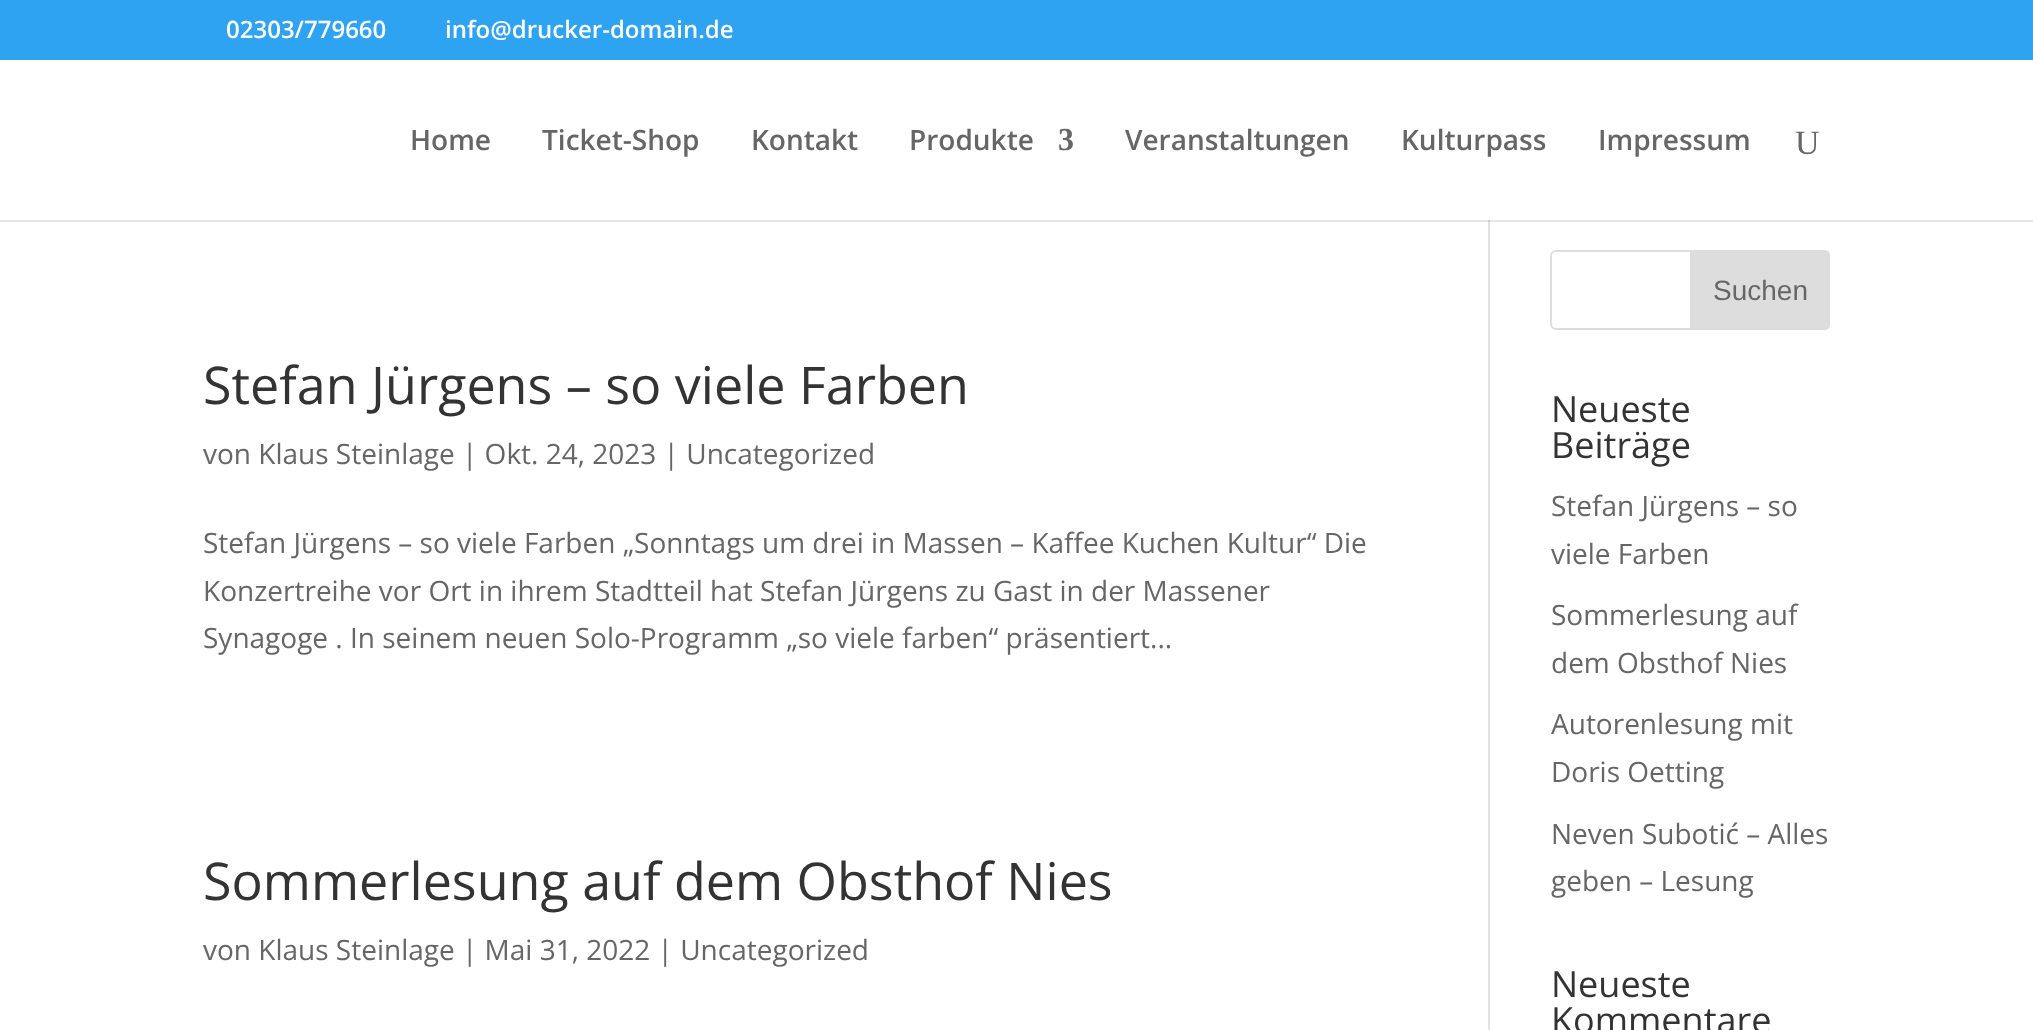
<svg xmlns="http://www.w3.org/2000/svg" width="2033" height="1030">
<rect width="100%" height="100%" fill="#fff"/>
<rect y="220" width="2033" height="2" fill="#e6e6e6"/>
<rect width="2033" height="60" fill="#2ea3f2"/>
<text x="226" y="38" style="font-family:Open Sans;font-size:24px;font-weight:600;fill:#fff">02303/779660</text>
<text x="445" y="38" style="font-family:Open Sans;font-size:24px;font-weight:600;fill:#fff">info@drucker-domain.de</text>
<text x="410" y="150" style="font-family:Open Sans;font-size:28px;font-weight:600;fill:#666">Home</text>
<text x="542" y="150" style="font-family:Open Sans;font-size:28px;font-weight:600;fill:#666">Ticket-Shop</text>
<text x="751" y="150" style="font-family:Open Sans;font-size:28px;font-weight:600;fill:#666">Kontakt</text>
<text x="909" y="150" style="font-family:Open Sans;font-size:28px;font-weight:600;fill:#666">Produkte</text>
<text x="1058" y="150" style="font-family:Liberation Serif;font-size:32px;font-weight:bold;fill:#666">3</text>
<text x="1125" y="150" style="font-family:Open Sans;font-size:28px;font-weight:600;fill:#666">Veranstaltungen</text>
<text x="1401" y="150" style="font-family:Open Sans;font-size:28px;font-weight:600;fill:#666">Kulturpass</text>
<text x="1598" y="150" style="font-family:Open Sans;font-size:28px;font-weight:600;fill:#666">Impressum</text>
<text x="1795" y="154" style="font-family:Liberation Serif;font-size:34px;fill:#666">U</text>
<rect x="1488" y="222" width="2" height="808" fill="#e2e2e2"/>
<rect x="1488" y="220" width="2" height="2" fill="#cbcbcb"/>
<text x="203" y="404" style="font-family:Open Sans;font-size:52px;fill:#333">Stefan Jürgens – so viele Farben</text>
<text x="203" y="464" style="font-family:Open Sans;font-size:28px;fill:#666">von Klaus Steinlage | Okt. 24, 2023 | Uncategorized</text>
<text x="203" y="553" style="font-family:Open Sans;font-size:28px;fill:#666">Stefan Jürgens – so viele Farben „Sonntags um drei in Massen – Kaffee Kuchen Kultur“ Die</text>
<text x="203" y="601" style="font-family:Open Sans;font-size:28px;fill:#666">Konzertreihe vor Ort in ihrem Stadtteil hat Stefan Jürgens zu Gast in der Massener</text>
<text x="203" y="648" style="font-family:Open Sans;font-size:28px;fill:#666">Synagoge . In seinem neuen Solo-Programm „so viele farben“ präsentiert...</text>
<text x="203" y="900" style="font-family:Open Sans;font-size:52px;fill:#333">Sommerlesung auf dem Obsthof Nies</text>
<text x="203" y="960" style="font-family:Open Sans;font-size:28px;fill:#666">von Klaus Steinlage | Mai 31, 2022 | Uncategorized</text>
<rect x="1551" y="251" width="278" height="78" rx="5" fill="none" stroke="#ddd" stroke-width="2"/>
<path d="M1691 251h133c3 0 5 2 5 5v68c0 3-2 5-5 5h-133z" fill="#ddd" stroke="#ddd" stroke-width="2"/>
<text x="1713" y="300" style="font-family:Liberation Sans;font-size:28px;fill:#666">Suchen</text>
<text x="1551" y="422" style="font-family:Open Sans;font-size:36px;fill:#333">Neueste</text>
<text x="1551" y="458" style="font-family:Open Sans;font-size:36px;fill:#333">Beiträge</text>
<text x="1551" y="516" style="font-family:Open Sans;font-size:28px;fill:#666">Stefan Jürgens – so</text>
<text x="1551" y="564" style="font-family:Open Sans;font-size:28px;fill:#666">viele Farben</text>
<text x="1551" y="625" style="font-family:Open Sans;font-size:28px;fill:#666">Sommerlesung auf</text>
<text x="1551" y="673" style="font-family:Open Sans;font-size:28px;fill:#666">dem Obsthof Nies</text>
<text x="1551" y="734" style="font-family:Open Sans;font-size:28px;fill:#666">Autorenlesung mit</text>
<text x="1551" y="782" style="font-family:Open Sans;font-size:28px;fill:#666">Doris Oetting</text>
<text x="1551" y="844" style="font-family:Open Sans;font-size:28px;fill:#666">Neven Subotić – Alles</text>
<text x="1551" y="891" style="font-family:Open Sans;font-size:28px;fill:#666">geben – Lesung</text>
<text x="1551" y="997" style="font-family:Open Sans;font-size:36px;fill:#333">Neueste</text>
<text x="1551" y="1033" style="font-family:Open Sans;font-size:36px;fill:#333">Kommentare</text>
</svg>
